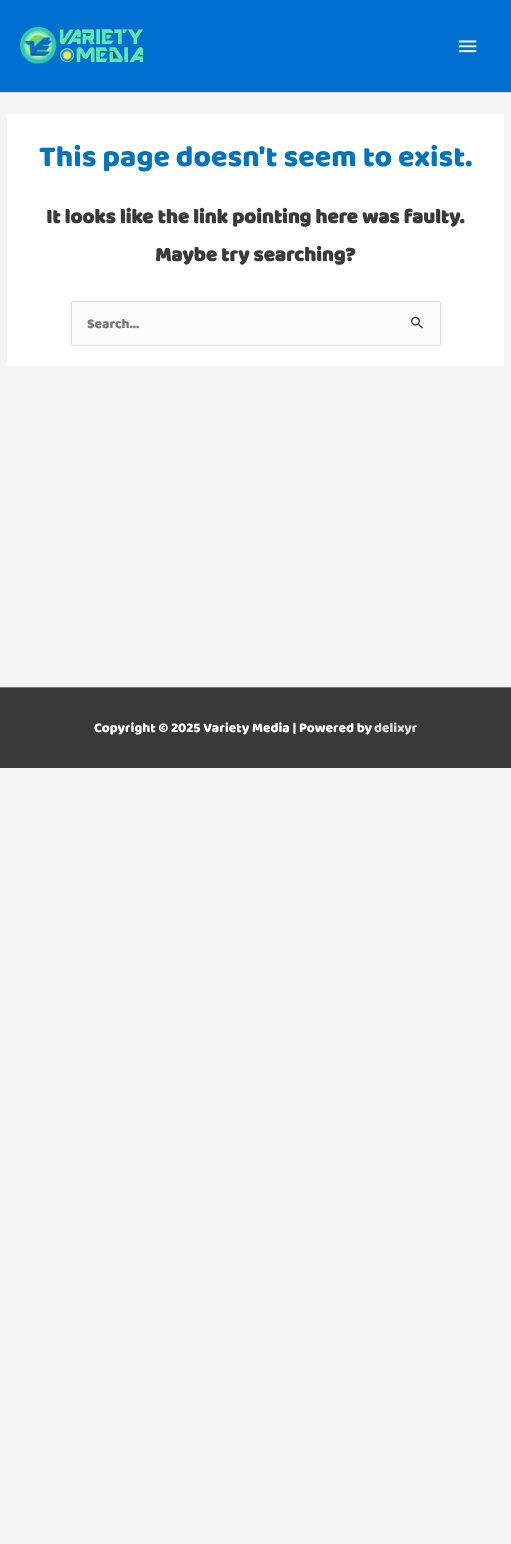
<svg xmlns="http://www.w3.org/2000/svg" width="511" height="1544">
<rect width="100%" height="100%" fill="#f5f5f5"/>
<rect width="511" height="92" fill="#006fd0"/>
<rect y="92" width="511" height="1" fill="#ddd"/>
<image x="20" y="27" width="124" height="37" href="media/1.png"/>
<image x="458" y="40" width="19" height="13" href="media/2.png"/>
<rect x="7" y="114" width="497" height="252" fill="#fff"/>
<text x="39" y="166" style="font-family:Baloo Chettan;font-size:30px;fill:#0274be">This page doesn't seem to exist.</text>
<text x="46" y="223" style="font-family:Baloo Chettan;font-size:20.5px;font-weight:bold;fill:#3a3a3a">It looks like the link pointing here was faulty.</text>
<text x="155" y="261" style="font-family:Baloo Chettan;font-size:20.5px;font-weight:bold;fill:#3a3a3a">Maybe try searching?</text>
<rect x="71.5" y="301.5" width="369" height="44" rx="1.5" fill="#fafafa" stroke="#ddd"/>
<text x="87" y="328" style="font-family:Baloo Chettan;font-size:13.7px;fill:#757575">Search...</text>
<image x="411" y="316" width="12" height="13" href="media/3.png"/>
<rect y="687" width="511" height="1" fill="#7a7a7a"/>
<rect y="688" width="511" height="80" fill="#3a3a3a"/>
<text x="94" y="732" style="font-family:Baloo Chettan;font-size:13.7px;fill:#fff">Copyright © 2025 Variety Media | Powered by</text>
<text x="374" y="732" style="font-family:Baloo Chettan;font-size:13.7px;fill:#ddd">delixyr</text>
</svg>
